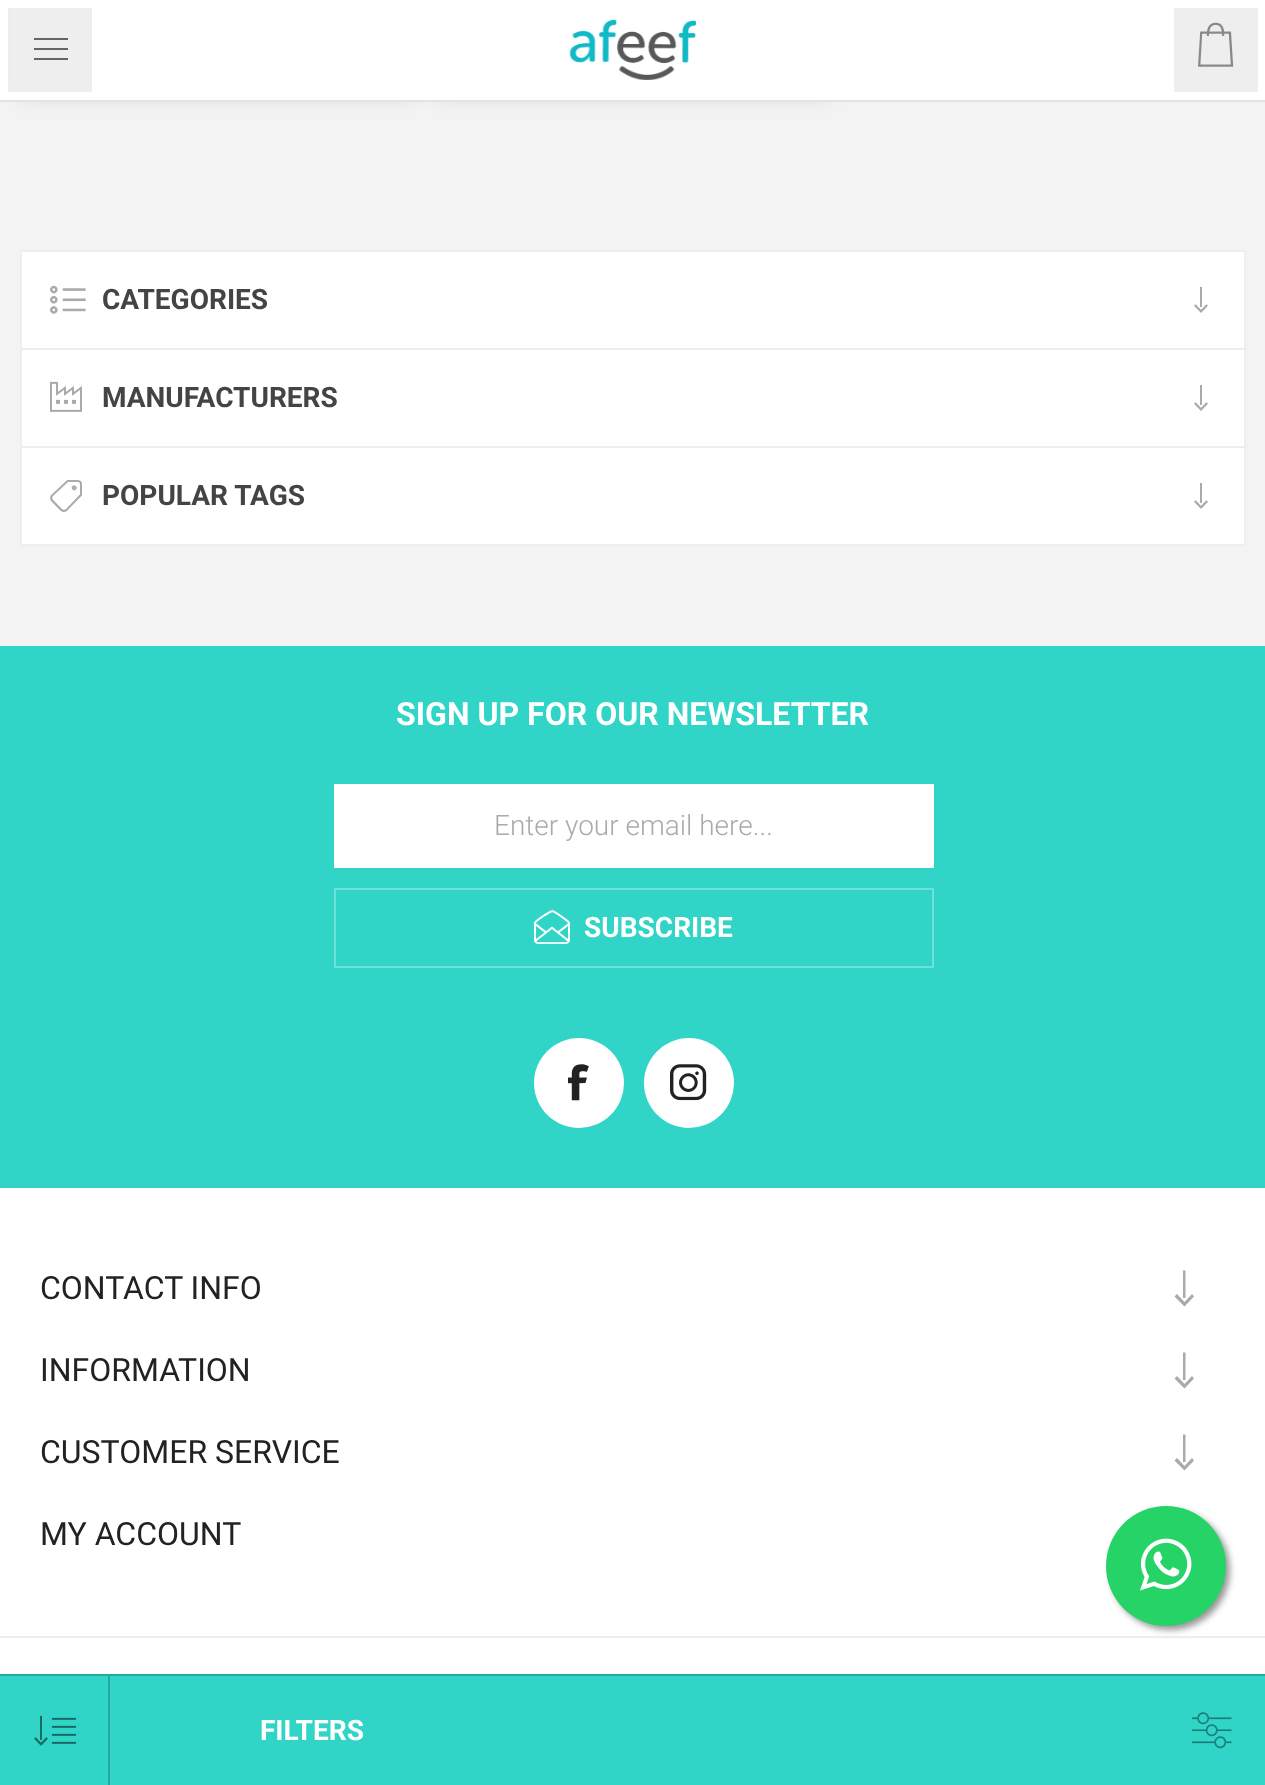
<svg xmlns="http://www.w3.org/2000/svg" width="1265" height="1785">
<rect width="100%" height="100%" fill="#f3f3f3"/>
<rect x="20" y="-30" width="396" height="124" fill="#00000030" filter="blur(10px)"/>
<rect x="436" y="-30" width="394" height="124" fill="#00000030" filter="blur(10px)"/>
<rect x="100" width="1066" height="100" fill="#fff"/>
<image x="569" y="20" width="128" height="60" href="media/1.png"/>
<rect y="100" width="1265" height="2" fill="#e3e3e3"/>
<rect x="10" y="8" width="82" height="84" fill="#eee"/>
<rect x="4" y="4" width="92" height="92" fill="none" stroke="#fff" stroke-width="8"/>
<rect x="34" y="38" width="34" height="2" fill="#666"/>
<rect x="34" y="48" width="34" height="2" fill="#666"/>
<rect x="34" y="58" width="34" height="2" fill="#666"/>
<rect x="1170" y="4" width="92" height="92" fill="#eee" stroke="#fff" stroke-width="8"/>
<image x="1198" y="22" width="36" height="45" href="media/2.png"/>
<rect x="22" y="252" width="1222" height="292" fill="#fff"/>
<rect x="20" y="250" width="1226" height="2" fill="#eee"/>
<rect x="1244" y="250" width="2" height="296" fill="#eee"/>
<rect x="20" y="250" width="2" height="296" fill="#eee"/>
<rect x="22" y="348" width="1222" height="2" fill="#eee"/>
<image x="50" y="285" width="36" height="29" href="media/3.png"/>
<text x="102" y="309" style="font-family:Roboto;font-size:28px;font-weight:bold;fill:#444">CATEGORIES</text>
<image x="1194" y="287" width="14" height="26" href="media/4.png"/>
<rect x="22" y="446" width="1222" height="2" fill="#eee"/>
<image x="50" y="381" width="32" height="31" href="media/5.png"/>
<text x="102" y="407" style="font-family:Roboto;font-size:28px;font-weight:bold;fill:#444">MANUFACTURERS</text>
<image x="1194" y="385" width="14" height="26" href="media/4.png"/>
<rect x="22" y="544" width="1222" height="2" fill="#eee"/>
<image x="50" y="480" width="32" height="32" href="media/6.png"/>
<text x="102" y="505" style="font-family:Roboto;font-size:28px;font-weight:bold;fill:#444">POPULAR TAGS</text>
<image x="1194" y="483" width="14" height="26" href="media/4.png"/>
<rect y="1676" width="1265" height="109" fill="#30d5c8"/>
<rect y="1674" width="1265" height="2" fill="#26aaa0"/>
<image x="34" y="1715" width="42" height="31" href="media/7.png"/>
<rect x="108" y="1676" width="2" height="109" fill="#26aaa0"/>
<text x="260" y="1740" style="font-family:Roboto;font-size:28px;font-weight:bold;fill:#fff">FILTERS</text>
<image x="1192" y="1712" width="40" height="37" href="media/8.png"/>
<rect y="1188" width="1265" height="448" fill="#fff"/>
<rect y="646" width="1265" height="542" fill="#30d5c8"/>
<text x="396" y="725" style="font-family:Roboto;font-size:32px;font-weight:bold;fill:#fff">SIGN UP FOR OUR NEWSLETTER</text>
<rect x="334" y="784" width="600" height="84" fill="#fff"/>
<text x="494" y="835" style="font-family:Roboto;font-size:28px;font-weight:300;fill:#aaa">Enter your email here...</text>
<image x="534" y="910" width="36" height="34" href="media/9.png"/>
<rect x="335" y="889" width="598" height="78" fill="none" stroke="#6ee2d9" stroke-width="2"/>
<text x="584" y="937" style="font-family:Roboto;font-size:28px;font-weight:bold;fill:#fff">SUBSCRIBE</text>
<circle cx="579" cy="1083" r="45" fill="#fff"/>
<image x="568" y="1064" width="21" height="37" href="media/10.png"/>
<circle cx="689" cy="1083" r="45" fill="#fff"/>
<image x="670" y="1064" width="37" height="37" href="media/11.png"/>
<text x="40" y="1299" style="font-family:Roboto;font-size:32px;fill:#222">CONTACT INFO</text>
<path d="M1185.5 1298h-2.5v-27.5h2.5zm8.5-1.5l-2-2.5l-7.5 8l-7.5-8l-2.5 2.5l10 10z" fill="#aaa"/>
<text x="40" y="1381" style="font-family:Roboto;font-size:32px;fill:#222">INFORMATION</text>
<path d="M1185.5 1380h-2.5v-27.5h2.5zm8.5-1.5l-2-2.5l-7.5 8l-7.5-8l-2.5 2.5l10 10z" fill="#aaa"/>
<text x="40" y="1463" style="font-family:Roboto;font-size:32px;fill:#222">CUSTOMER SERVICE</text>
<path d="M1185.5 1462h-2.5v-27.5h2.5zm8.5-1.5l-2-2.5l-7.5 8l-7.5-8l-2.5 2.5l10 10z" fill="#aaa"/>
<text x="40" y="1545" style="font-family:Roboto;font-size:32px;fill:#222">MY ACCOUNT</text>
<rect y="1638" width="1265" height="36" fill="#fff"/>
<rect y="1636" width="1265" height="2" fill="#eee"/>
<rect x="1110" y="1510" width="120" height="120" rx="60" fill="#999" filter="blur(3px)"/>
<circle cx="1166" cy="1566" r="60" fill="#25d366"/>
<image x="1140" y="1538" width="52" height="53" href="media/12.png"/>
</svg>
